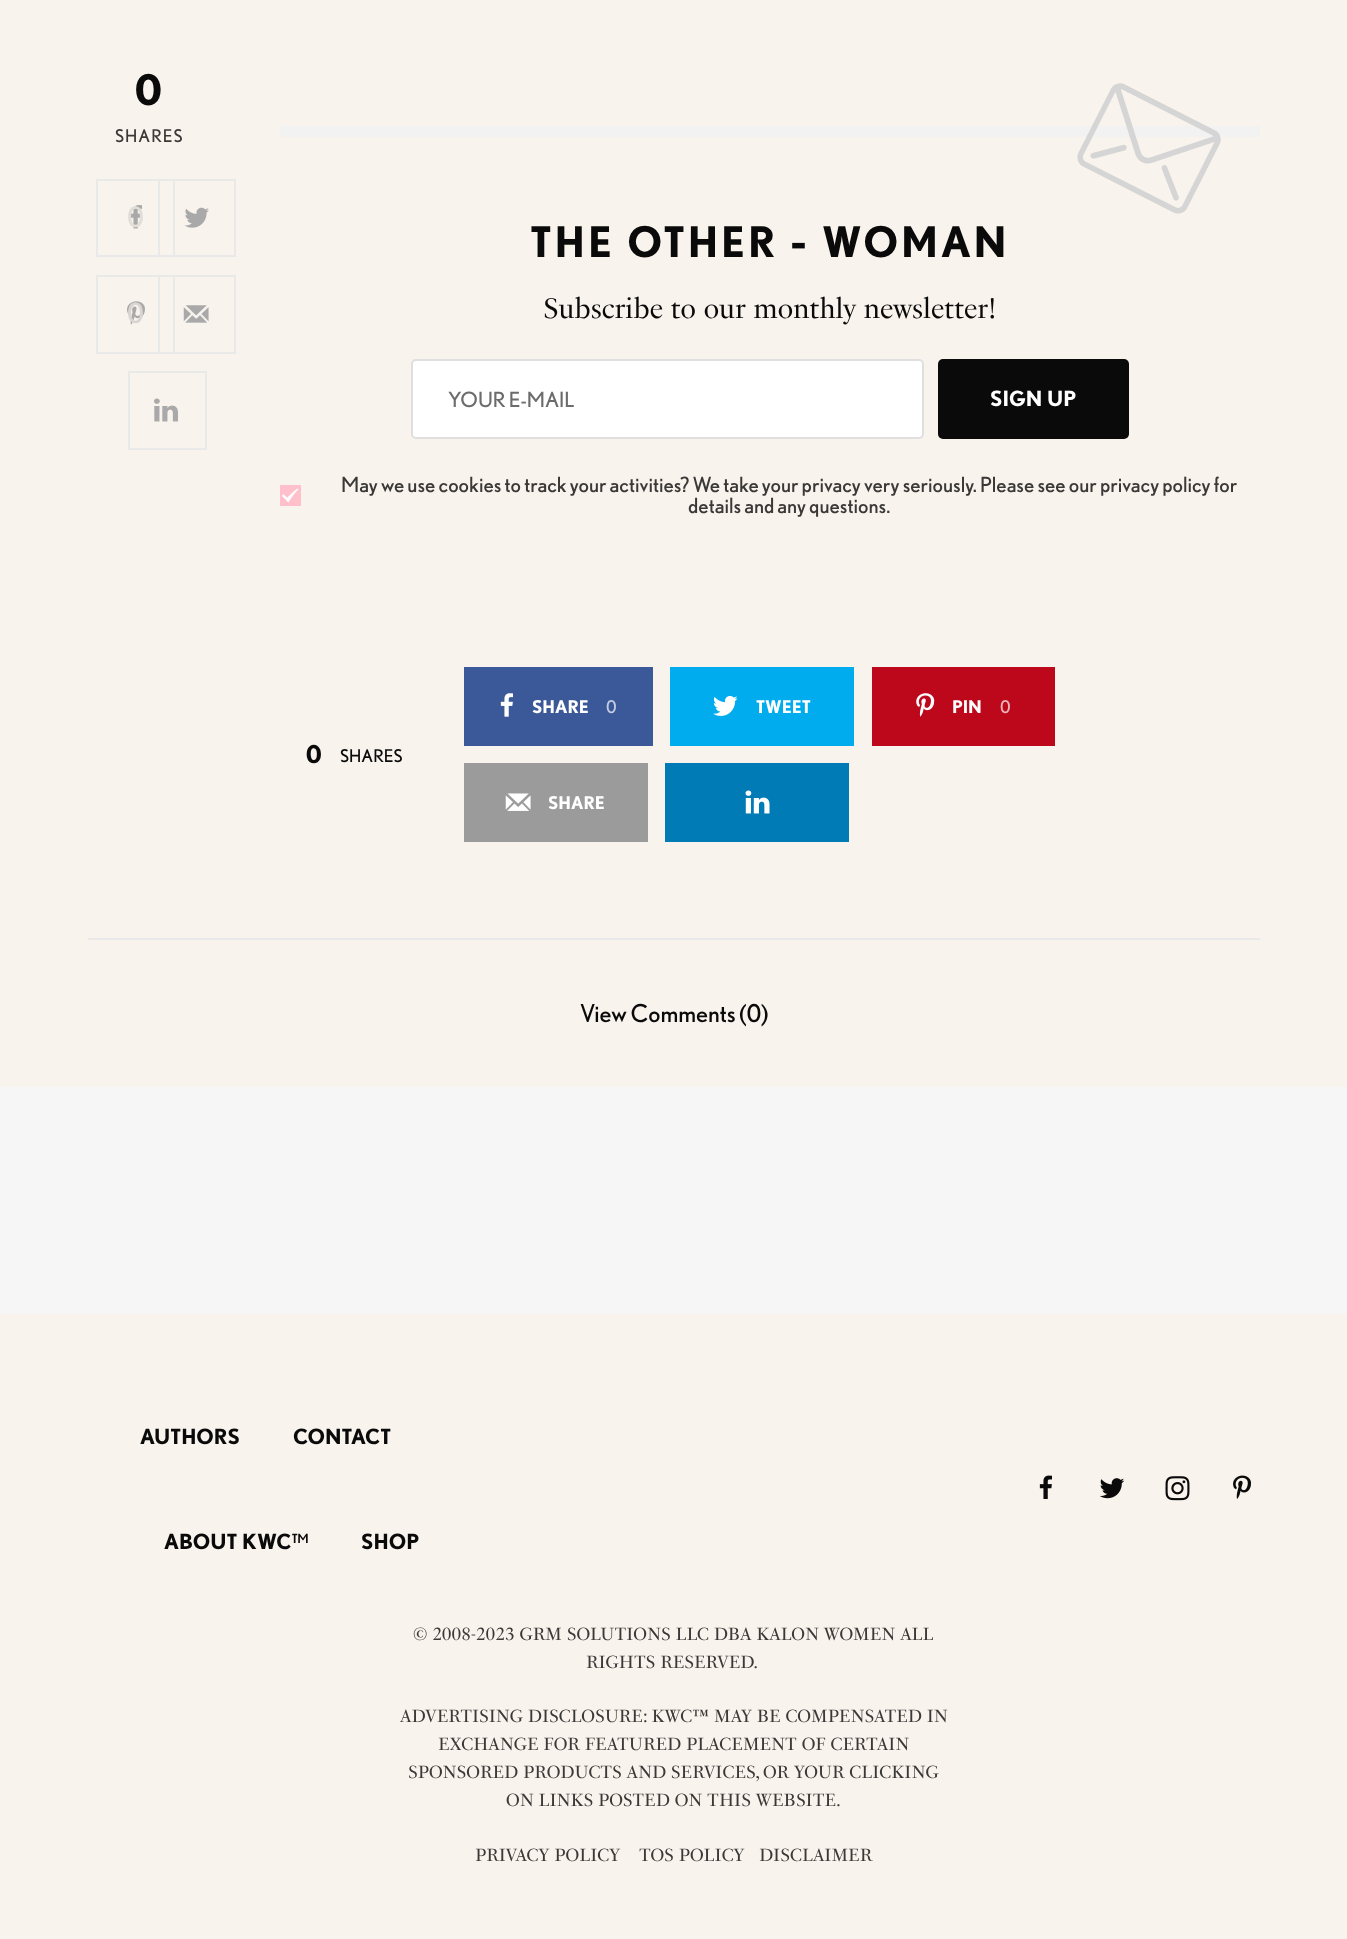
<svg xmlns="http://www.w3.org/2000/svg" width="1347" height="1939">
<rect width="100%" height="100%" fill="#f9f3ed"/>
<text x="135" y="105" style="font-family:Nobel;font-size:42px;font-weight:bold;fill:#0a0a0a">0</text>
<text x="115" y="142" style="font-family:Nobel;font-size:17.5px;letter-spacing:1px;fill:#3a3937">SHARES</text>
<rect x="97" y="180" width="77" height="76" fill="none" stroke="#e9e9e9" stroke-width="2"/>
<image x="129" y="205" width="13" height="24" href="media/1.png"/>
<text x="127" y="227" style="font-family:Nobel;font-size:28px;fill:#e1ddd9">0</text>
<rect x="159" y="180" width="76" height="76" fill="none" stroke="#e9e9e9" stroke-width="2"/>
<image x="184" y="207" width="25" height="21" href="media/2.png"/>
<rect x="97" y="276" width="77" height="77" fill="none" stroke="#e9e9e9" stroke-width="2"/>
<image x="127" y="301" width="18" height="24" href="media/3.png"/>
<text x="127" y="323" style="font-family:Nobel;font-size:28px;fill:#d9d5d2">0</text>
<rect x="159" y="276" width="76" height="77" fill="none" stroke="#e9e9e9" stroke-width="2"/>
<image x="183" y="305" width="26" height="18" href="media/4.png"/>
<rect x="129" y="372" width="77" height="77" fill="none" stroke="#e9e9e9" stroke-width="2"/>
<image x="154" y="398" width="24" height="24" href="media/5.png"/>
<rect x="280" y="126" width="980" height="11" fill="#f2f2f2"/>
<image x="1077" y="83" width="144" height="131" href="media/6.png"/>
<text x="530" y="257" style="font-family:Nobel;font-size:42px;font-weight:bold;letter-spacing:2.9px;fill:#0a0a0a">THE OTHER - WOMAN</text>
<text x="543" y="318" style="font-family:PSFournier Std;font-size:28px;fill:#0a0a0a">Subscribe to our monthly newsletter!</text>
<rect x="412" y="360" width="511" height="78" rx="4" fill="#fff" stroke="#dfdfdf" stroke-width="2"/>
<text x="448" y="407" style="font-family:Nobel;font-size:21px;fill:#6c6c6c">YOUR E-MAIL</text>
<rect x="938" y="359" width="191" height="80" rx="5" fill="#0a0a0a"/>
<text x="990" y="406" style="font-family:Nobel;font-size:21px;font-weight:bold;fill:#fff">SIGN UP</text>
<rect x="280" y="485" width="21" height="21" fill="#ffc0cb"/>
<image x="282" y="488" width="17" height="15" href="media/7.png"/>
<text x="341" y="492" style="font-family:Nobel;font-size:21px;fill:#3a3937">May we use cookies to track your activities? We take your privacy very seriously. Please see our privacy policy for</text>
<text x="688" y="513" style="font-family:Nobel;font-size:21px;fill:#3a3937">details and any questions.</text>
<text x="306" y="763" style="font-family:Nobel;font-size:24.5px;font-weight:bold;fill:#0a0a0a">0</text>
<text x="340" y="762" style="font-family:Nobel;font-size:17.5px;fill:#0a0a0a">SHARES</text>
<rect x="464" y="667" width="189" height="79" fill="#3b5998"/>
<image x="500" y="693" width="13" height="24" href="media/8.png"/>
<text x="532" y="713" style="font-family:Nobel;font-size:17.5px;font-weight:bold;fill:#fff">SHARE</text>
<text x="606" y="713" style="font-family:Nobel;font-size:17.5px;fill:#c4cde0">0</text>
<rect x="670" y="667" width="184" height="79" fill="#00aced"/>
<image x="713" y="696" width="25" height="20" href="media/9.png"/>
<text x="756" y="713" style="font-family:Nobel;font-size:17.5px;font-weight:bold;fill:#fff">TWEET</text>
<rect x="872" y="667" width="183" height="79" fill="#bd081c"/>
<image x="916" y="693" width="19" height="24" href="media/10.png"/>
<text x="952" y="713" style="font-family:Nobel;font-size:17.5px;font-weight:bold;fill:#fff">PIN</text>
<text x="1000" y="713" style="font-family:Nobel;font-size:17.5px;fill:#ebb5bb">0</text>
<rect x="464" y="763" width="184" height="79" fill="#9b9b9b"/>
<image x="505" y="793" width="26" height="18" href="media/11.png"/>
<text x="548" y="809" style="font-family:Nobel;font-size:17.5px;font-weight:bold;fill:#fff">SHARE</text>
<rect x="665" y="763" width="184" height="79" fill="#007bb6"/>
<image x="745" y="790" width="25" height="24" href="media/12.png"/>
<rect x="88" y="938" width="1172" height="2" fill="#e9e9e9"/>
<text x="580" y="1022" style="font-family:Nobel;font-size:24.5px;fill:#0a0a0a">View Comments (0)</text>
<rect y="1087" width="1347" height="227" fill="#f6f6f6"/>
<text x="140" y="1444" style="font-family:Nobel;font-size:21px;font-weight:bold;fill:#0a0a0a">AUTHORS</text>
<text x="293" y="1444" style="font-family:Nobel;font-size:21px;font-weight:bold;fill:#0a0a0a">CONTACT</text>
<text x="164" y="1549" style="font-family:Nobel;font-size:21px;font-weight:bold;fill:#0a0a0a">ABOUT KWC™</text>
<text x="361" y="1549" style="font-family:Nobel;font-size:21px;font-weight:bold;fill:#0a0a0a">SHOP</text>
<image x="1039" y="1475" width="13" height="24" href="media/13.png"/>
<image x="1100" y="1478" width="25" height="21" href="media/14.png"/>
<image x="1165" y="1476" width="25" height="25" href="media/15.png"/>
<image x="1233" y="1475" width="18" height="24" href="media/16.png"/>
<text x="413" y="1640" style="font-family:PSFournier Std;font-size:17.5px;fill:#3a3937">© 2008-2023 GRM SOLUTIONS LLC DBA KALON WOMEN ALL</text>
<text x="586" y="1668" style="font-family:PSFournier Std;font-size:17.5px;fill:#3a3937">RIGHTS RESERVED.</text>
<text x="400" y="1722" style="font-family:PSFournier Std;font-size:17.5px;fill:#3a3937">ADVERTISING DISCLOSURE: KWC™ MAY BE COMPENSATED IN</text>
<text x="438" y="1750" style="font-family:PSFournier Std;font-size:17.5px;fill:#3a3937">EXCHANGE FOR FEATURED PLACEMENT OF CERTAIN</text>
<text x="408" y="1778" style="font-family:PSFournier Std;font-size:17.5px;fill:#3a3937">SPONSORED PRODUCTS AND SERVICES, OR YOUR CLICKING</text>
<text x="506" y="1806" style="font-family:PSFournier Std;font-size:17.5px;fill:#3a3937">ON LINKS POSTED ON THIS WEBSITE.</text>
<text x="475" y="1861" style="font-family:PSFournier Std;font-size:17.5px;fill:#3a3937">PRIVACY POLICY</text>
<text x="639" y="1861" style="font-family:PSFournier Std;font-size:17.5px;fill:#3a3937">TOS POLICY</text>
<text x="759" y="1861" style="font-family:PSFournier Std;font-size:17.5px;fill:#3a3937">DISCLAIMER</text>
</svg>
